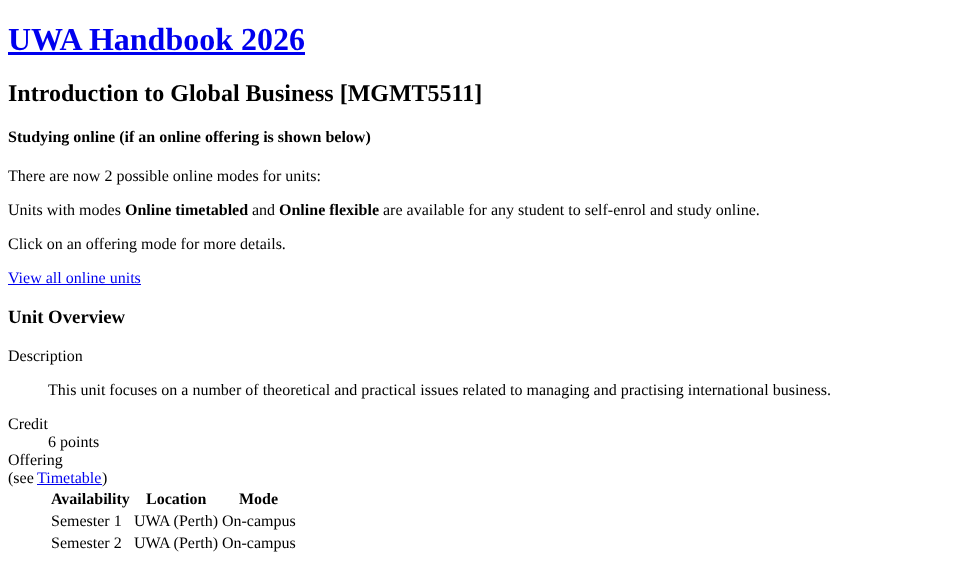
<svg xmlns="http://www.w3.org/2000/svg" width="963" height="565">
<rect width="100%" height="100%" fill="#fff"/>
<text x="8" y="50" style="font-family:Liberation Serif;font-size:32px;font-weight:bold;fill:#00e">UWA Handbook 2026</text>
<rect x="8" y="52" width="297" height="3" fill="#00e"/>
<text x="8" y="101" style="font-family:Liberation Serif;font-size:24px;font-weight:bold;fill:#000">Introduction to Global Business [MGMT5511]</text>
<text x="8" y="142" style="font-family:Liberation Serif;font-size:16px;font-weight:bold;fill:#000">Studying online (if an online offering is shown below)</text>
<text x="8" y="181" style="font-family:Liberation Serif;font-size:16px;fill:#000">There are now 2 possible online modes for units:</text>
<text x="8" y="215" style="font-family:Liberation Serif;font-size:16px;fill:#000">Units with modes</text>
<text x="125" y="215" style="font-family:Liberation Serif;font-size:16px;font-weight:bold;fill:#000">Online timetabled</text>
<text x="252" y="215" style="font-family:Liberation Serif;font-size:16px;fill:#000">and</text>
<text x="279" y="215" style="font-family:Liberation Serif;font-size:16px;font-weight:bold;fill:#000">Online flexible</text>
<text x="383" y="215" style="font-family:Liberation Serif;font-size:16px;fill:#000">are available for any student to self-enrol and study online.</text>
<text x="8" y="249" style="font-family:Liberation Serif;font-size:16px;fill:#000">Click on an offering mode for more details.</text>
<text x="8" y="283" style="font-family:Liberation Serif;font-size:16px;fill:#00e">View all online units</text>
<rect x="8" y="284" width="133" height="1" fill="#00e"/>
<text x="8" y="323" style="font-family:Liberation Serif;font-size:18.75px;font-weight:bold;fill:#000">Unit Overview</text>
<text x="8" y="361" style="font-family:Liberation Serif;font-size:16px;fill:#000">Description</text>
<text x="48" y="395" style="font-family:Liberation Serif;font-size:16px;fill:#000">This unit focuses on a number of theoretical and practical issues related to managing and practising international business.</text>
<text x="8" y="429" style="font-family:Liberation Serif;font-size:16px;fill:#000">Credit</text>
<text x="48" y="447" style="font-family:Liberation Serif;font-size:16px;fill:#000">6 points</text>
<text x="8" y="465" style="font-family:Liberation Serif;font-size:16px;fill:#000">Offering</text>
<text x="8" y="483" style="font-family:Liberation Serif;font-size:16px;fill:#000">(see</text>
<text x="37" y="483" style="font-family:Liberation Serif;font-size:16px;fill:#00e">Timetable</text>
<rect x="37" y="484" width="65" height="1" fill="#00e"/>
<text x="102" y="483" style="font-family:Liberation Serif;font-size:16px;fill:#000">)</text>
<text x="51" y="504" style="font-family:Liberation Serif;font-size:16px;font-weight:bold;fill:#000">Availability</text>
<text x="146" y="504" style="font-family:Liberation Serif;font-size:16px;font-weight:bold;fill:#000">Location</text>
<text x="239" y="504" style="font-family:Liberation Serif;font-size:16px;font-weight:bold;fill:#000">Mode</text>
<text x="51" y="526" style="font-family:Liberation Serif;font-size:16px;fill:#000">Semester 1</text>
<text x="134" y="526" style="font-family:Liberation Serif;font-size:16px;fill:#000">UWA (Perth) On-campus</text>
<text x="51" y="548" style="font-family:Liberation Serif;font-size:16px;fill:#000">Semester 2</text>
<text x="134" y="548" style="font-family:Liberation Serif;font-size:16px;fill:#000">UWA (Perth) On-campus</text>
</svg>
